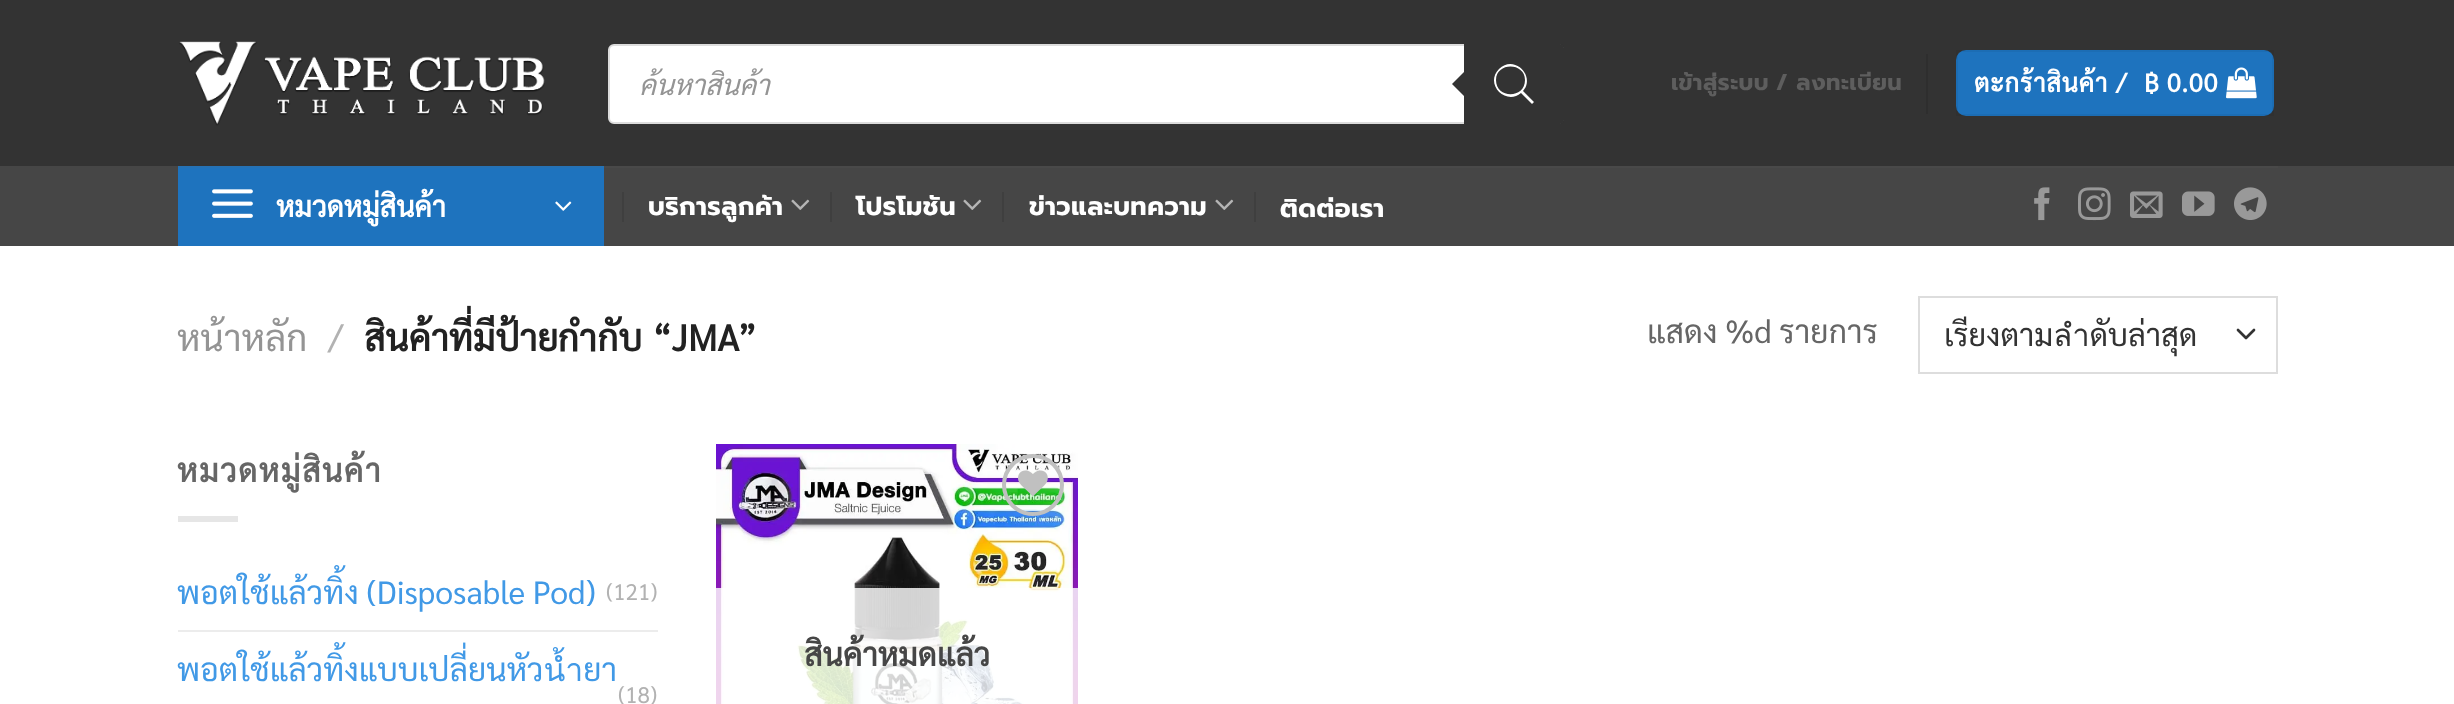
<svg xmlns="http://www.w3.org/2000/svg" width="2454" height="704">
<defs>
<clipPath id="clip1"><rect x="640" y="66" width="892" height="36"/></clipPath>
<clipPath id="clip2"><rect x="1944" y="310" width="288" height="50"/></clipPath>
</defs>
<rect width="100%" height="100%" fill="#fff"/>
<rect width="2454" height="166" fill="#333"/>
<image x="179" y="41" width="366" height="85" href="media/1.png"/>
<rect x="609" y="45" width="954" height="78" rx="5" fill="#fff" stroke="#ddd" stroke-width="2"/>
<g clip-path="url(#clip1)">
<text x="639" y="95" style="font-family:Sarabun;font-size:28px;font-style:italic;fill:#949494">ค้นหาสินค้า</text>
</g>
<path d="M1464 44h96c2 0 4 2 4 4v72c0 2-2 4-4 4h-96z" fill="#333"/>
<path d="M1468 68v32l-16-16z" fill="#333"/>
<path d="M1534 102l-11-11c13-15-9-37-24-22c-15 15 7 37 22 24l11 11zm-38-22c0-18 29-18 29 0c0 19-29 19-29 0z" fill="#fff"/>
<text x="1671" y="90" style="font-family:Prompt;font-size:22.5px;font-weight:bold;letter-spacing:0.5px;fill:#5e5e5e">เข้าสู่ระบบ</text>
<text x="1776" y="90" style="font-family:Prompt;font-size:22.5px;font-weight:bold;letter-spacing:0.5px;fill:#5e5e5e">/ ลงทะเบียน</text>
<rect x="1926" y="54" width="2" height="60" fill="#2e2e2e"/>
<rect x="1956" y="50" width="318" height="66" rx="10" fill="#1e73be"/>
<rect x="1957" y="51" width="316" height="64" fill="none" stroke="#0000000d" stroke-width="2"/>
<text x="1974" y="92" style="font-family:Sarabun;font-size:25.5px;font-weight:bold;letter-spacing:0.75px;fill:#fff">ตะกร้าสินค้า</text>
<text x="2116" y="92" style="font-family:Sarabun;font-size:25.5px;font-weight:bold;letter-spacing:0.75px;fill:#fff">/</text>
<text x="2144" y="92" style="font-family:Sarabun;font-size:25.5px;font-weight:bold;letter-spacing:0.75px;fill:#fff">฿ 0.00</text>
<image x="2226" y="67" width="31" height="32" href="media/2.png"/>
<rect y="166" width="2454" height="80" fill="#464646"/>
<rect x="604" y="166" width="1674" height="2" fill="#494949"/>
<rect x="178" y="168" width="426" height="78" fill="#1e73be"/>
<rect x="178" y="166" width="426" height="2" fill="#2572b5"/>
<image x="212" y="189" width="41" height="29" href="media/3.png"/>
<text x="276" y="217" style="font-family:Sarabun;font-size:28.75px;font-weight:bold;fill:#fff">หมวดหมู่สินค้า</text>
<image x="555" y="201" width="17" height="10" href="media/4.png"/>
<rect x="622" y="192" width="2" height="30" fill="#3f3f3f"/>
<text x="648" y="215" style="font-family:Prompt;font-size:25.5px;font-weight:bold;letter-spacing:0.5px;fill:#fff">บริการลูกค้า</text>
<image x="791" y="199" width="19" height="11" href="media/5.png"/>
<rect x="830" y="192" width="2" height="30" fill="#3f3f3f"/>
<text x="856" y="215" style="font-family:Prompt;font-size:25.5px;font-weight:bold;letter-spacing:0.5px;fill:#fff">โปรโมชัน</text>
<image x="963" y="199" width="19" height="11" href="media/5.png"/>
<rect x="1002" y="192" width="2" height="30" fill="#3f3f3f"/>
<text x="1029" y="215" style="font-family:Prompt;font-size:25.5px;font-weight:bold;letter-spacing:0.5px;fill:#fff">ข่าวและบทความ</text>
<image x="1215" y="199" width="19" height="11" href="media/5.png"/>
<rect x="1254" y="192" width="2" height="30" fill="#3f3f3f"/>
<text x="1280" y="217" style="font-family:Prompt;font-size:25.5px;font-weight:bold;letter-spacing:0.5px;fill:#fff">ติดต่อเรา</text>
<image x="2034" y="187" width="16" height="34" href="media/6.png"/>
<image x="2078" y="187" width="33" height="34" href="media/7.png"/>
<image x="2130" y="191" width="33" height="27" href="media/8.png"/>
<image x="2182" y="191" width="33" height="25" href="media/9.png"/>
<image x="2234" y="187" width="33" height="33" href="media/10.png"/>
<text x="177" y="351" style="font-family:Sarabun;font-size:36.75px;fill:#949494">หน้าหลัก</text>
<text x="328" y="351" style="font-family:Sarabun;font-size:36.75px;fill:#b2b2b2">/</text>
<text x="364" y="351" word-spacing="1" style="font-family:Sarabun;font-size:36.75px;font-weight:bold;fill:#222">สินค้าที่มีป้ายกำกับ “JMA”</text>
<text x="1647" y="343" style="font-family:Sarabun;font-size:32px;fill:#666">แสดง %d รายการ</text>
<path d="M2238 330l8 8l8-8" fill="none" stroke="#333" stroke-width="2.7" stroke-linecap="round" stroke-linejoin="round"/>
<rect x="1919" y="297" width="358" height="76" fill="none" stroke="#ddd" stroke-width="2"/>
<g clip-path="url(#clip2)">
<text x="1944" y="346" style="font-family:Sarabun;font-size:31px;fill:#333">เรียงตามลำดับล่าสุด</text>
</g>
<text x="177" y="482" style="font-family:Sarabun;font-size:32px;font-weight:bold;letter-spacing:1.6px;fill:#666">หมวดหมู่สินค้า</text>
<rect x="178" y="516" width="60" height="6" fill="#e6e6e6"/>
<text x="177" y="604" style="font-family:Sarabun;font-size:32px;fill:#4199e6">พอตใช้แล้วทิ้ง (Disposable Pod)</text>
<text x="606" y="600" style="font-family:Sarabun;font-size:22.5px;fill:#b2b2b2">(121)</text>
<rect x="178" y="630" width="480" height="2" fill="#ececec"/>
<text x="177" y="681" style="font-family:Sarabun;font-size:32px;fill:#4199e6">พอตใช้แล้วทิ้งแบบเปลี่ยนหัวน้ำยา</text>
<text x="618" y="703" style="font-family:Sarabun;font-size:22.5px;fill:#b2b2b2">(18)</text>
<image x="716" y="444" width="362" height="260" href="media/11.png"/>
<circle cx="1033" cy="485" r="29" fill="none" stroke="#c0c0c0" stroke-width="4"/>
<image x="1018" y="470" width="30" height="26" href="media/12.png"/>
<rect x="716" y="588" width="362" height="116" fill="#ffffffcf"/>
<text x="804" y="666" style="font-family:Sarabun;font-size:32px;font-weight:bold;fill:#464646">สินค้าหมดแล้ว</text>
</svg>
